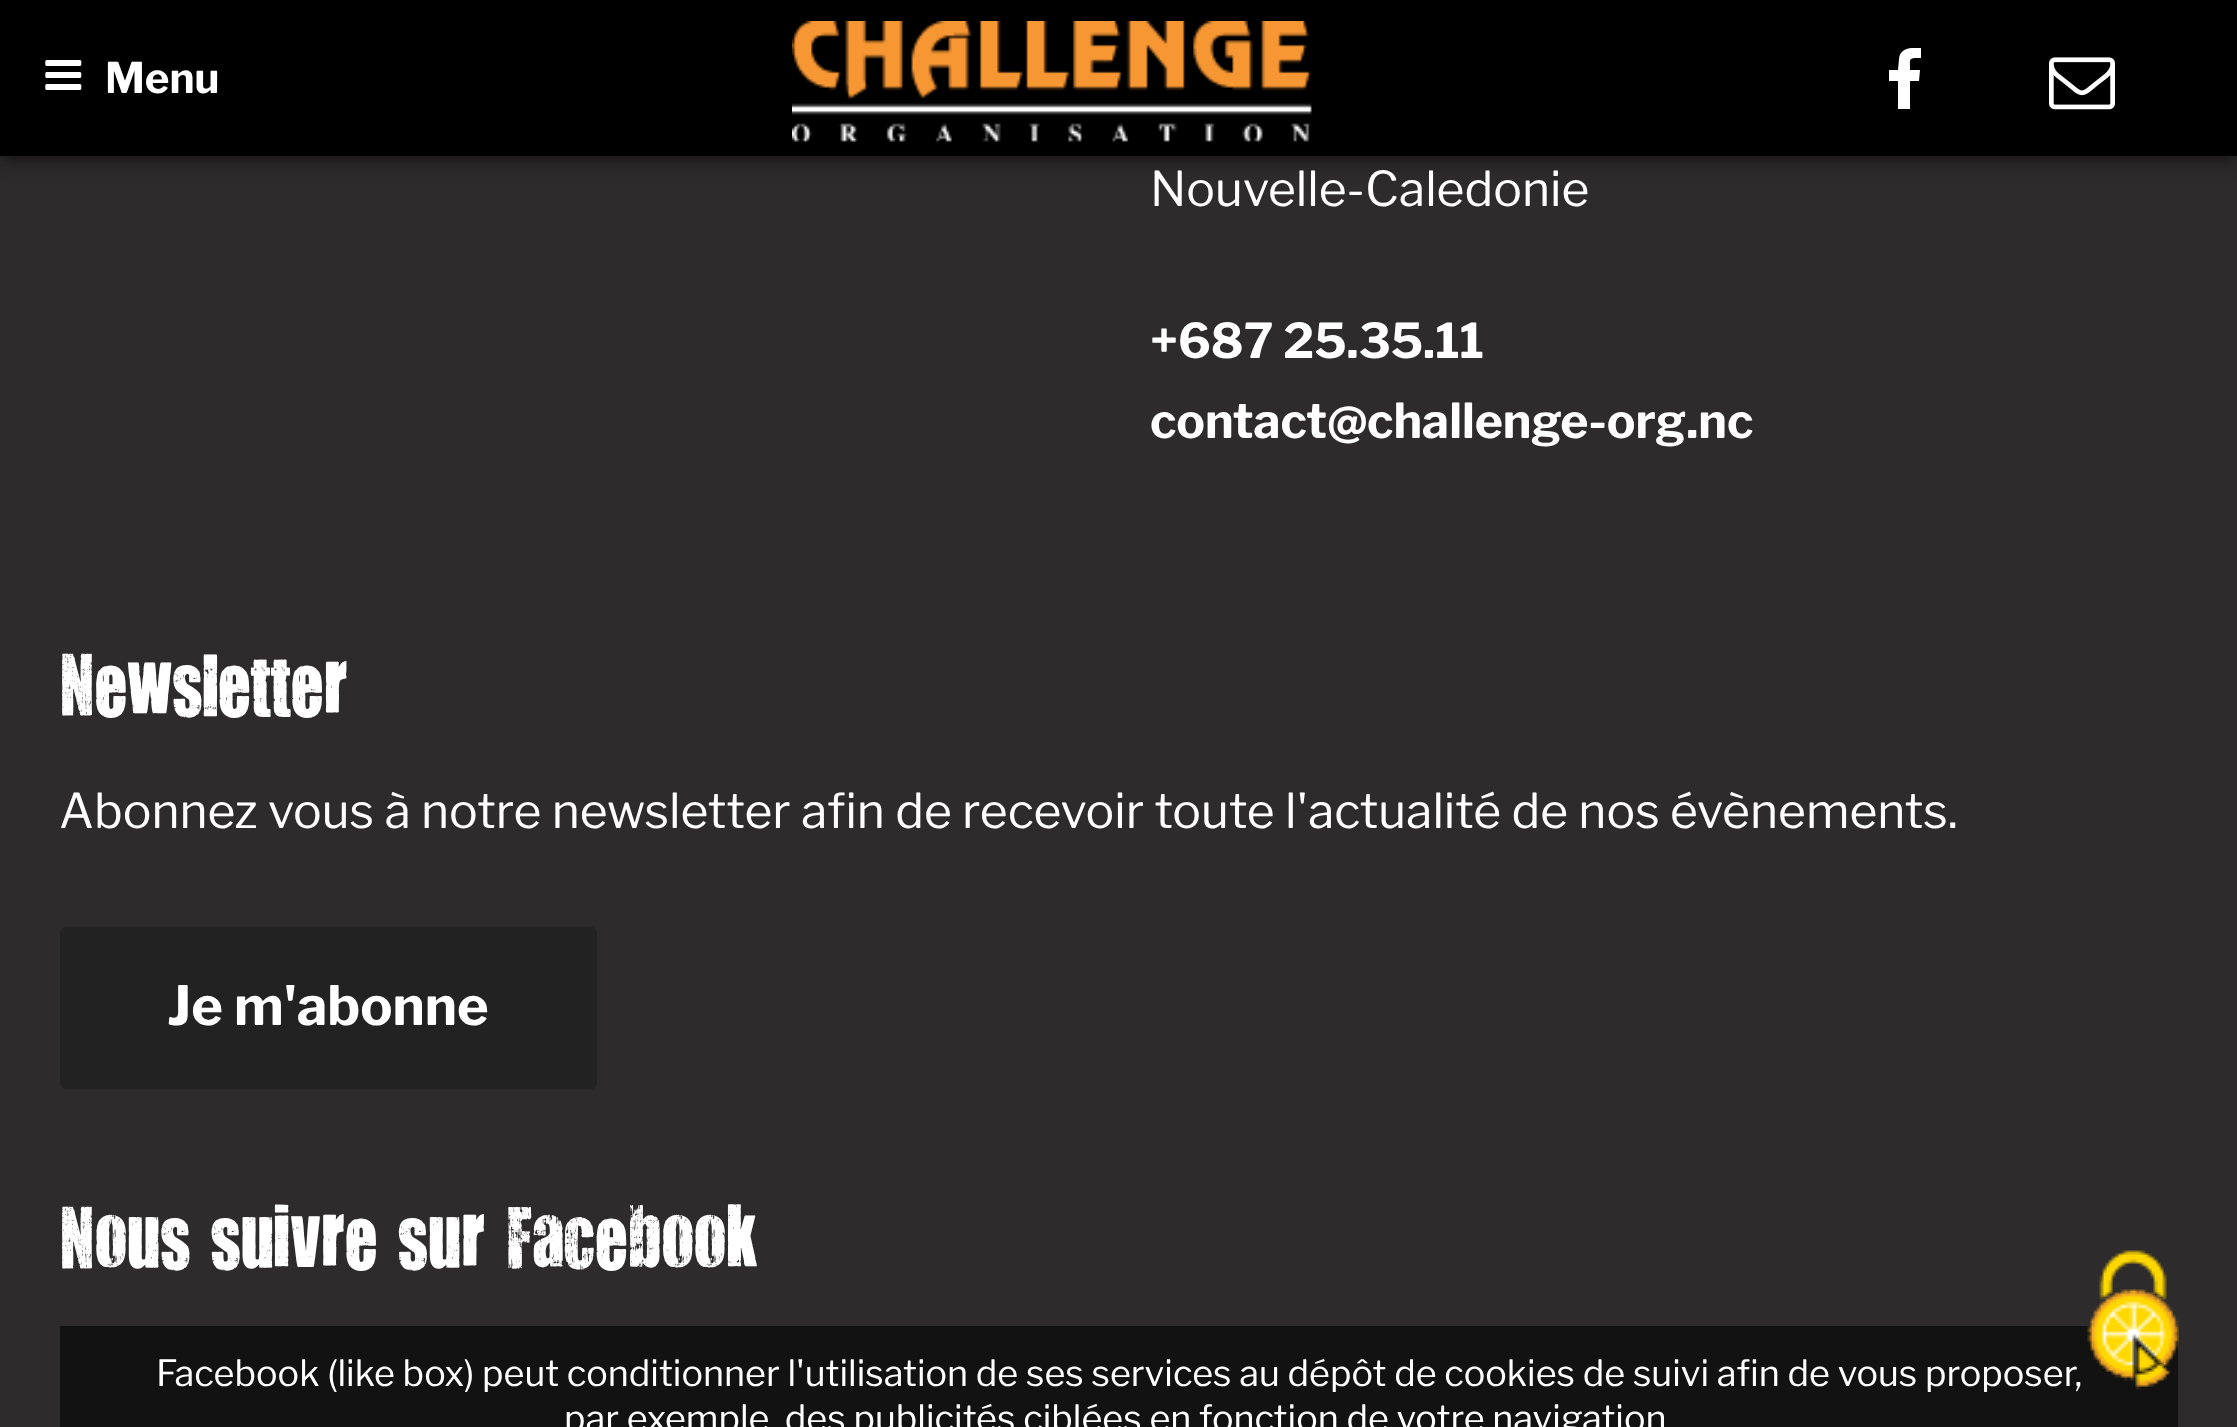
<svg xmlns="http://www.w3.org/2000/svg" width="2237" height="1427">
<defs>
<clipPath id="clip1"><rect x="1872" y="48" width="66" height="66"/></clipPath>
</defs>
<rect width="100%" height="100%" fill="#2d2b2b"/>
<rect x="3" y="9" width="2232" height="150" fill="#00000066" filter="blur(6px)"/>
<rect y="12" width="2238" height="156" fill="#00000024" filter="blur(7.5px)"/>
<rect width="2237" height="156" fill="#000"/>
<image x="45" y="60" width="37" height="30" href="media/1.png"/>
<text x="105" y="93" style="font-family:Libre Franklin;font-size:42px;font-weight:bold;fill:#fff">Menu</text>
<image x="792" y="21" width="520" height="121" href="media/2.png"/>
<g clip-path="url(#clip1)">
<path d="M1921 48v10c-13 0-11 0-11 12h10l-1 11h-9v28h-12v-28h-9v-11h9l1-11c1-11 12-12 22-11z" fill="#fff"/>
</g>
<image x="2049" y="57" width="66" height="53" href="media/3.png"/>
<text x="1150" y="206" style="font-family:Libre Franklin;font-size:48px;fill:#fff">Nouvelle-Caledonie</text>
<text x="1150" y="358" style="font-family:Libre Franklin;font-size:48px;font-weight:bold;fill:#fff">+687 25.35.11</text>
<text x="1150" y="438" style="font-family:Libre Franklin;font-size:48px;font-weight:bold;fill:#fff">contact@challenge-org.nc</text>
<text x="59" y="712" style="font-family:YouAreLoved;font-size:72px;fill:#fff">Newsletter</text>
<text x="59" y="828" style="font-family:Libre Franklin;font-size:48px;fill:#fff">Abonnez vous à notre newsletter afin de recevoir toute l'actualité de nos évènements.</text>
<rect x="60" y="927" width="537" height="162" rx="6" fill="#222"/>
<text x="167" y="1025" style="font-family:Libre Franklin;font-size:54px;font-weight:bold;fill:#fff">Je m'abonne</text>
<text x="59" y="1265" style="font-family:YouAreLoved;font-size:72px;fill:#fff">Nous suivre sur Facebook</text>
<rect x="60" y="1326" width="2118" height="101" fill="#131212"/>
<text x="156" y="1386" style="font-family:Libre Franklin;font-size:36px;fill:#fff">Facebook (like box) peut conditionner l'utilisation de ses services au dépôt de cookies de suivi afin de vous proposer,</text>
<text x="564" y="1431" style="font-family:Libre Franklin;font-size:36px;fill:#fff">par exemple, des publicités ciblées en fonction de votre navigation</text>
<image x="2087" y="1250" width="92" height="140" href="media/4.png"/>
</svg>
